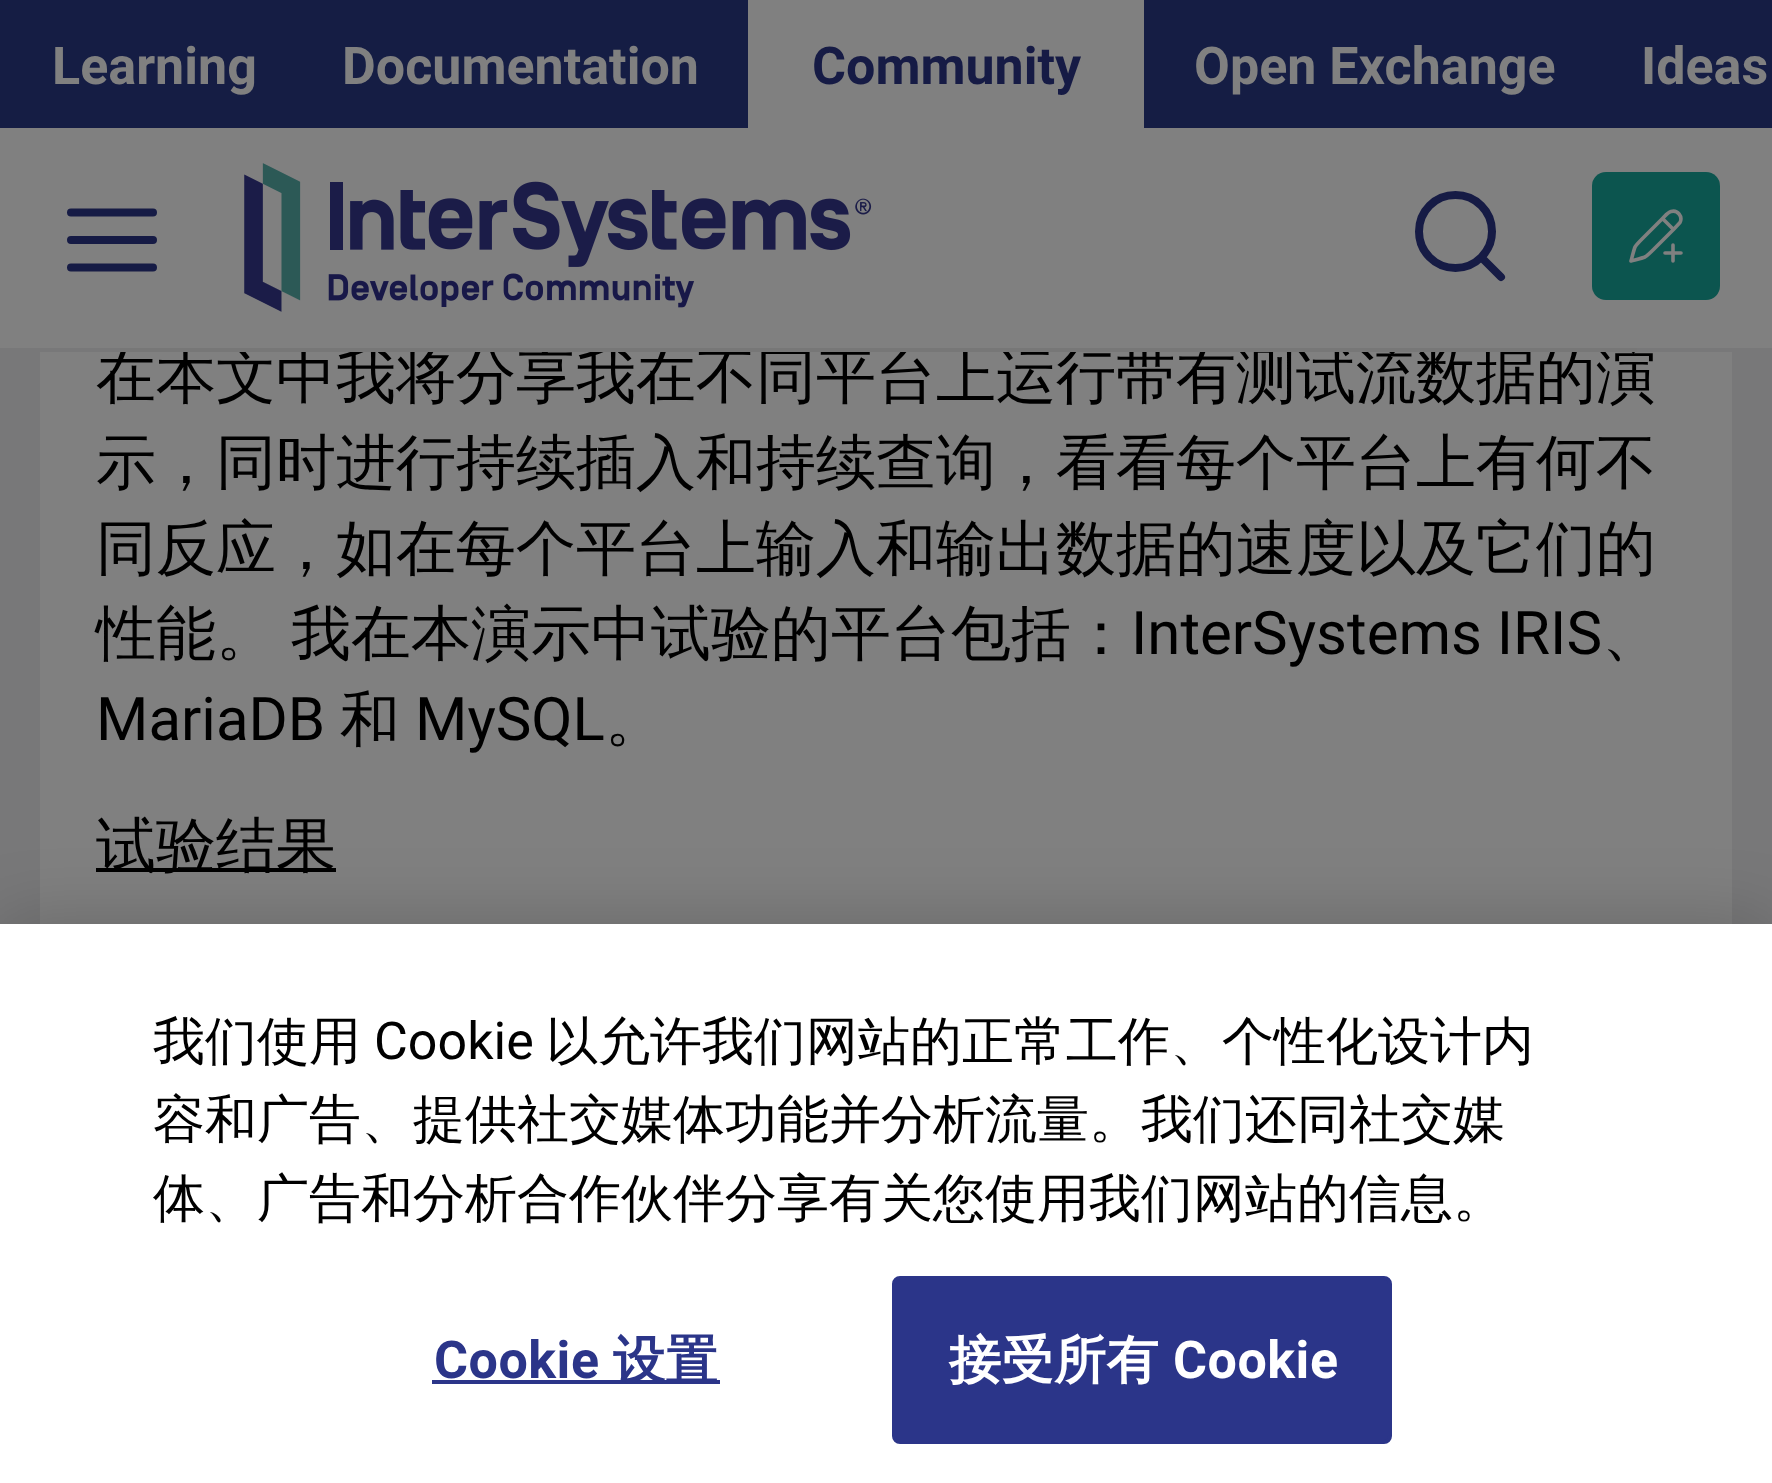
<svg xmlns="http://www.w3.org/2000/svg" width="1772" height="1483">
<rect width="100%" height="100%" fill="#787879"/>
<rect x="40" y="352" width="1692" height="572" fill="#808080"/>
<text x="96" y="397" style="font-family:WenQuanYi Zen Hei;font-size:60px;font-weight:500;fill:#000">在本文中我将分享我在不同平台上运行带有测试流数据的演</text>
<rect y="128" width="1772" height="220" fill="#808080"/>
<rect x="120" y="348" width="1517" height="4" fill="#777"/>
<rect width="1772" height="128" fill="#151d44"/>
<text x="52" y="84" style="font-family:Roboto;font-size:52px;font-weight:bold;fill:#808080">Learning</text>
<text x="342" y="84" style="font-family:Roboto;font-size:52px;font-weight:bold;fill:#808080">Documentation</text>
<rect x="748" width="396" height="128" fill="#808080"/>
<text x="812" y="84" style="font-family:Roboto;font-size:52px;font-weight:bold;fill:#161b45">Community</text>
<text x="1194" y="84" style="font-family:Roboto;font-size:52px;font-weight:bold;fill:#808080">Open Exchange</text>
<text x="1641" y="84" style="font-family:Roboto;font-size:52px;font-weight:bold;fill:#808080">Ideas</text>
<path d="M71 240h82m-82-27.5h82m-82 55h82" fill="none" stroke="#161b45" stroke-width="8" stroke-linecap="round" stroke-linejoin="round"/>
<image x="244" y="163" width="628" height="149" href="media/1.png"/>
<path d="M1501 277l-19.5-19.5m10.5-26c0 20-16.5 36.5-36.5 36.5c-20.5 0-36.5-16.5-36.5-36.5c0-20.5 16-36.5 36.5-36.5c20 0 36.5 16 36.5 36.5z" fill="none" stroke="#161b45" stroke-width="8" stroke-linecap="round" stroke-linejoin="round"/>
<rect x="1592" y="172" width="128" height="128" rx="14" fill="#0c554f"/>
<path d="M1665 253h16m-8 8v-16m-10.5-26.5c2.5-2.5 5-6 8.5-7c6.5-2 12 5 9 11l-6.5 7m-11-11l-20 20c-4 4-6 6-7.5 8.5c-1 2.5-2.5 8.5-4 14c5.5-1.5 11.5-3 14-4c2.5-1.5 4.5-3.5 8.5-7.5l20-20m-11-11l11 11" fill="none" stroke="#808080" stroke-width="3.6" stroke-linecap="round" stroke-linejoin="round"/>
<text x="96" y="483" style="font-family:WenQuanYi Zen Hei;font-size:60px;font-weight:500;fill:#000">示，同时进行持续插入和持续查询，看看每个平台上有何不</text>
<text x="96" y="569" style="font-family:WenQuanYi Zen Hei;font-size:60px;font-weight:500;fill:#000">同反应，如在每个平台上输入和输出数据的速度以及它们的</text>
<text x="96" y="654" style="font-family:WenQuanYi Zen Hei;font-size:60px;font-weight:500;fill:#000">性能。</text>
<text x="291" y="654" style="font-family:WenQuanYi Zen Hei;font-size:60px;font-weight:500;fill:#000">我在本演示中试验的平台包括：</text>
<text x="1131" y="654" style="font-family:Roboto;font-size:60px;fill:#000">InterSystems IRIS</text>
<text x="1602" y="654" style="font-family:WenQuanYi Zen Hei;font-size:60px;font-weight:500;fill:#000">、</text>
<text x="96" y="740" style="font-family:Roboto;font-size:60px;fill:#000">MariaDB</text>
<text x="340" y="740" style="font-family:WenQuanYi Zen Hei;font-size:60px;font-weight:500;fill:#000">和</text>
<text x="415" y="740" style="font-family:Roboto;font-size:60px;fill:#000">MySQL</text>
<text x="605" y="740" style="font-family:WenQuanYi Zen Hei;font-size:60px;font-weight:500;fill:#000">。</text>
<rect x="96" y="868" width="240" height="4" fill="#000"/>
<text x="96" y="866" style="font-family:WenQuanYi Zen Hei;font-size:60px;font-weight:500;fill:#000">试验结果</text>
<rect y="924" width="1772" height="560" fill="#00000033" filter="blur(36px)"/>
<rect y="924" width="1772" height="559" fill="#fff"/>
<text x="153" y="1059" style="font-family:WenQuanYi Zen Hei;font-size:52px;font-weight:500;fill:#000">我们使用</text>
<text x="374" y="1059" style="font-family:Roboto;font-size:52px;fill:#000">Cookie</text>
<text x="546" y="1059" style="font-family:WenQuanYi Zen Hei;font-size:52px;font-weight:500;fill:#000">以允许我们网站的正常工作、个性化设计内</text>
<text x="153" y="1137" style="font-family:WenQuanYi Zen Hei;font-size:52px;font-weight:500;fill:#000">容和广告、提供社交媒体功能并分析流量。我们还同社交媒</text>
<text x="153" y="1216" style="font-family:WenQuanYi Zen Hei;font-size:52px;font-weight:500;fill:#000">体、广告和分析合作伙伴分享有关您使用我们网站的信息。</text>
<text x="434" y="1378" style="font-family:Roboto;font-size:52px;font-weight:bold;letter-spacing:0.5px;fill:#2b3589">Cookie</text>
<rect x="432" y="1380" width="288" height="4" fill="#2b3589"/>
<text x="613" y="1378" style="font-family:WenQuanYi Zen Hei;font-size:52px;font-weight:bold;letter-spacing:0.5px;fill:#2b3589">设置</text>
<rect x="894" y="1278" width="496" height="164" rx="6" fill="#2b3589" stroke="#2b3589" stroke-width="4"/>
<text x="949" y="1378" style="font-family:WenQuanYi Zen Hei;font-size:52px;font-weight:bold;letter-spacing:0.5px;fill:#fff">接受所有</text>
<text x="1173" y="1378" style="font-family:Roboto;font-size:52px;font-weight:bold;letter-spacing:0.5px;fill:#fff">Cookie</text>
</svg>
